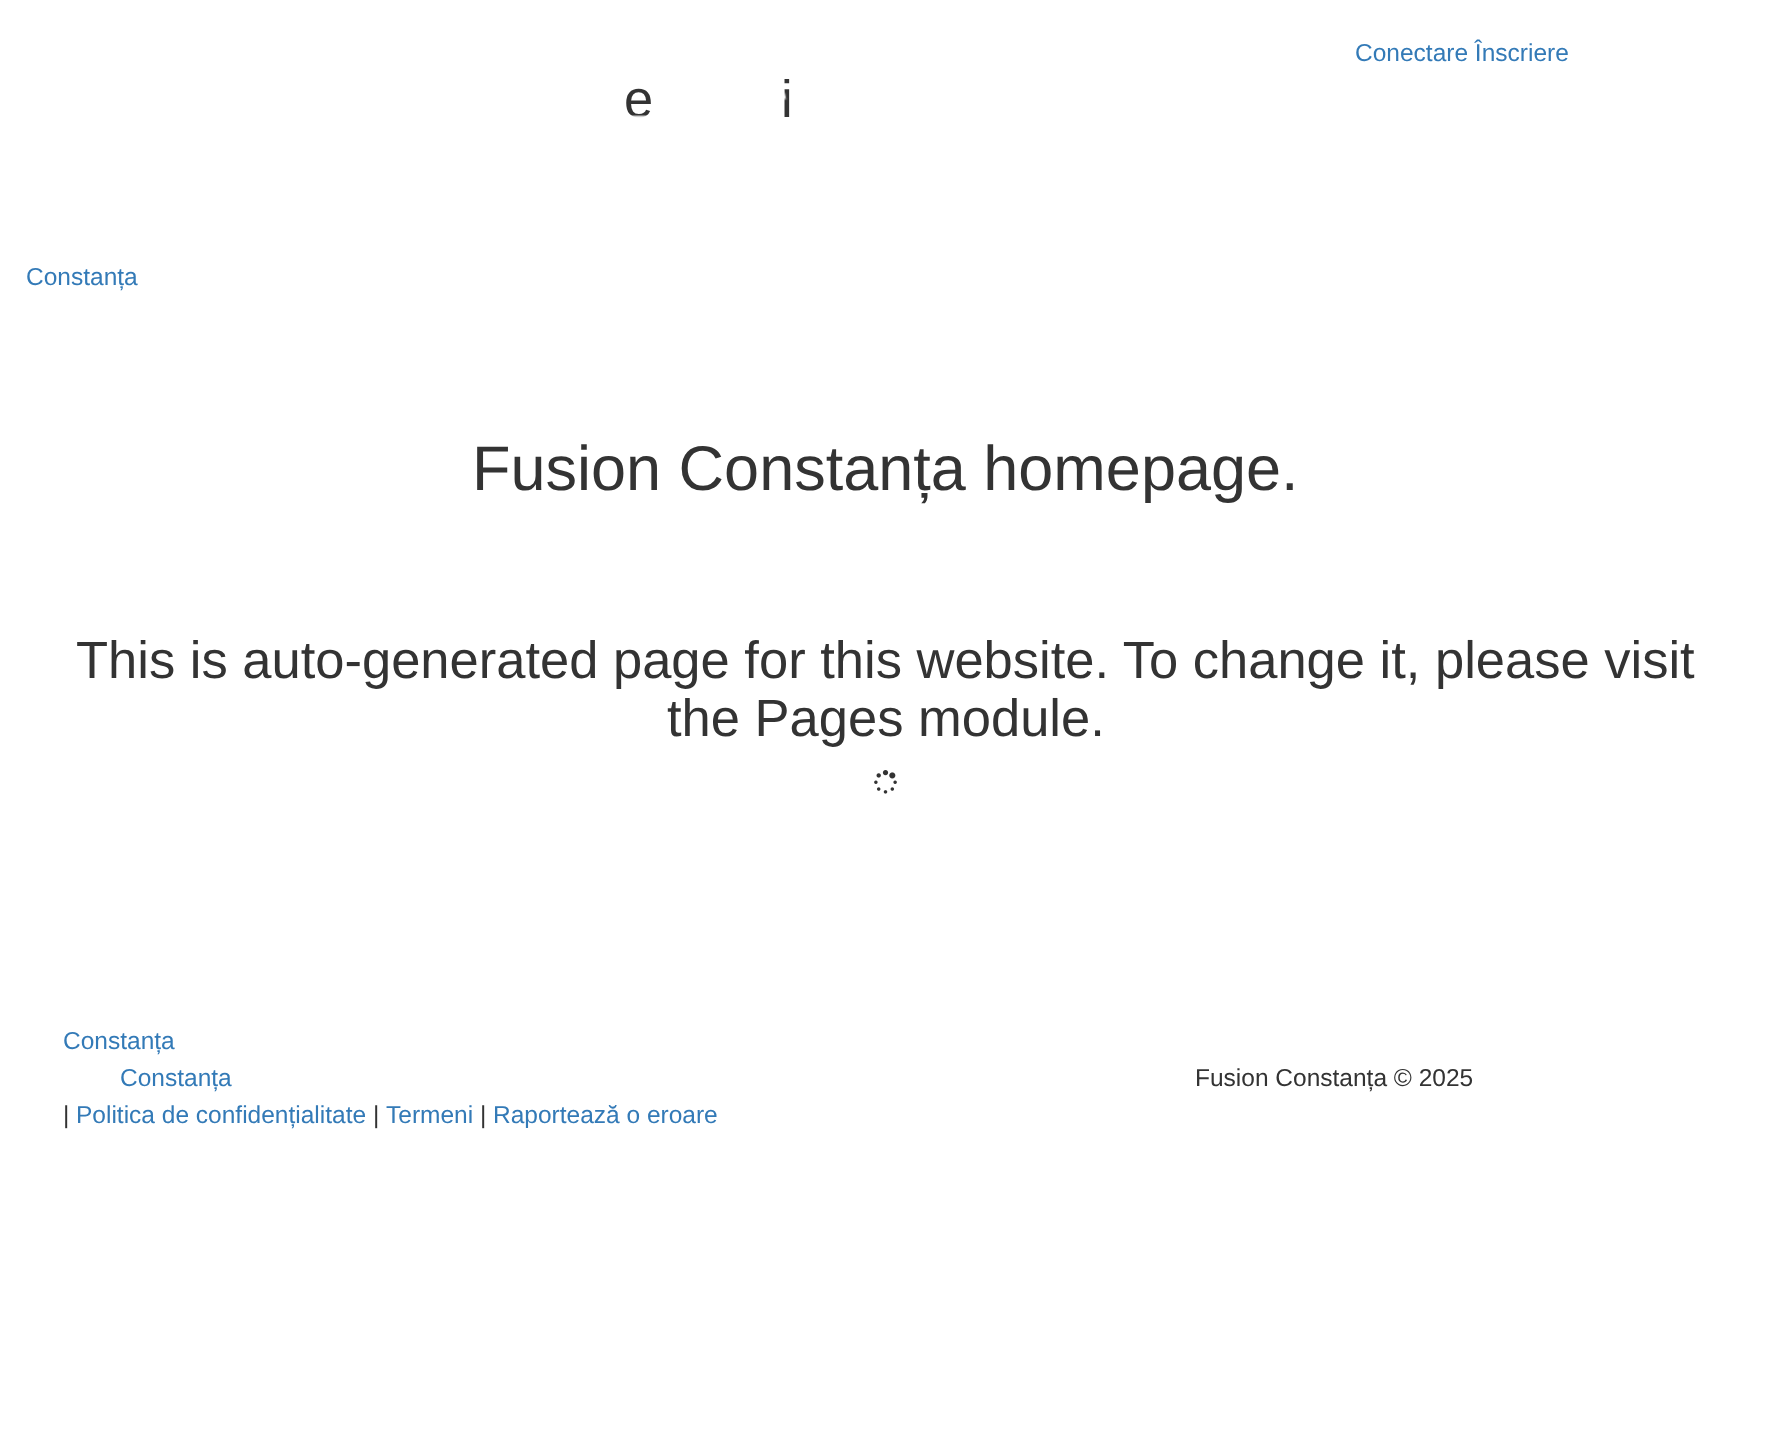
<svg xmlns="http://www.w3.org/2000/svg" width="1770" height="1437">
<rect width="100%" height="100%" fill="#fff"/>
<text x="1355" y="61" style="font-family:Liberation Sans;font-size:24.5px;fill:#337ab7">Conectare Înscriere</text>
<text x="624" y="117" style="font-family:Liberation Sans;font-size:52.5px;fill:#333">e</text>
<text x="781" y="117" style="font-family:Liberation Sans;font-size:52.5px;fill:#333">i</text>
<image x="447" y="78" width="446" height="50" href="media/1.png"/>
<text x="26" y="285" style="font-family:Liberation Sans;font-size:24.5px;fill:#337ab7">Constanța</text>
<text x="472" y="490" style="font-family:Liberation Sans;font-size:63px;fill:#333">Fusion Constanța homepage.</text>
<text x="76" y="678" style="font-family:Liberation Sans;font-size:52.5px;fill:#333">This is auto-generated page for this website. To change it, please visit</text>
<text x="667" y="736" style="font-family:Liberation Sans;font-size:52.5px;fill:#333">the Pages module.</text>
<image x="874" y="770" width="23" height="24" href="media/2.png"/>
<text x="63" y="1049" style="font-family:Liberation Sans;font-size:24.5px;fill:#337ab7">Constanța</text>
<text x="120" y="1086" style="font-family:Liberation Sans;font-size:24.5px;fill:#337ab7">Constanța</text>
<text x="63" y="1123" style="font-family:Liberation Sans;font-size:24.5px;fill:#333">|</text>
<text x="76" y="1123" style="font-family:Liberation Sans;font-size:24.5px;fill:#337ab7">Politica de confidențialitate</text>
<text x="373" y="1123" style="font-family:Liberation Sans;font-size:24.5px;fill:#333">|</text>
<text x="386" y="1123" style="font-family:Liberation Sans;font-size:24.5px;fill:#337ab7">Termeni</text>
<text x="480" y="1123" style="font-family:Liberation Sans;font-size:24.5px;fill:#333">|</text>
<text x="493" y="1123" style="font-family:Liberation Sans;font-size:24.5px;fill:#337ab7">Raportează o eroare</text>
<text x="1195" y="1086" style="font-family:Liberation Sans;font-size:24.5px;fill:#333">Fusion Constanța © 2025</text>
</svg>
